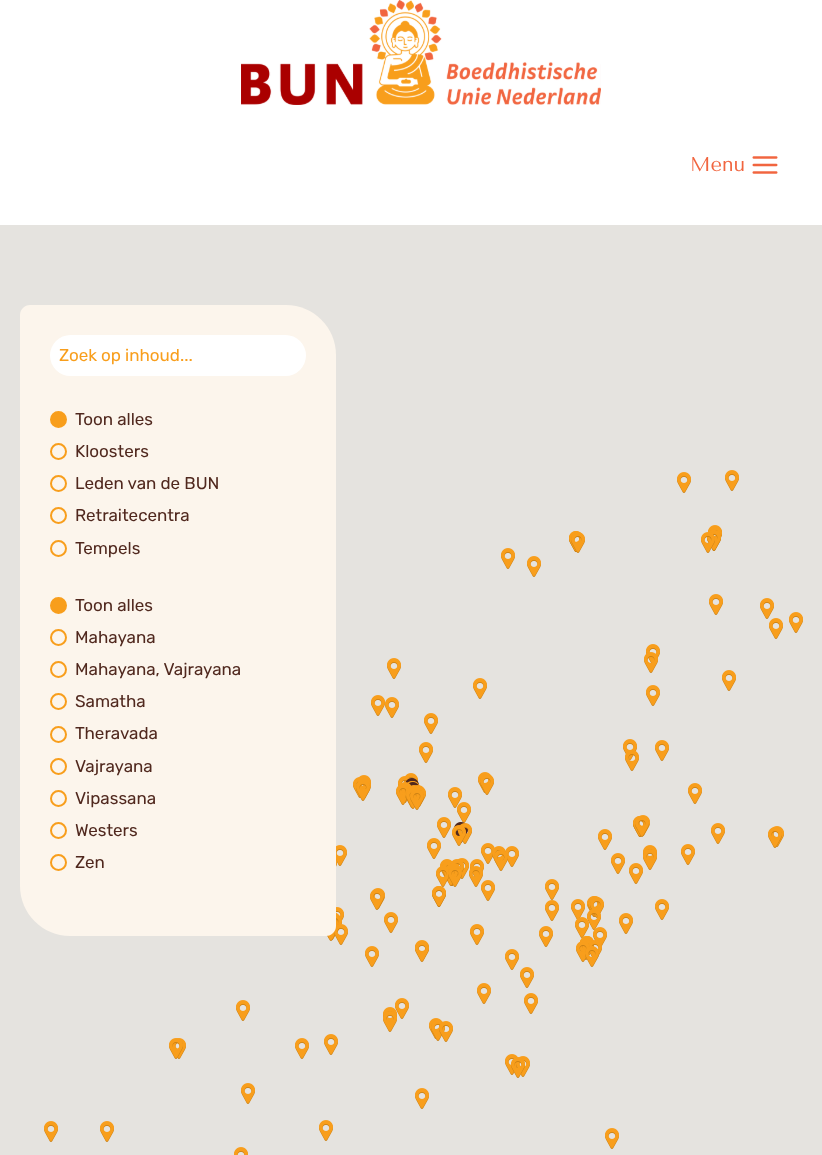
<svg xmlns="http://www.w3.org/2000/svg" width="822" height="1155">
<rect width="100%" height="100%" fill="#fff"/>
<image x="241" y="0" width="360" height="105" href="media/1.png"/>
<text x="690" y="171" style="font-family:Tenor Sans;font-size:20px;fill:#f1653f">Menu</text>
<image x="752" y="156" width="26" height="18" href="media/2.png"/>
<rect y="225" width="822" height="930" fill="#e5e3df"/>
<image x="677" y="472" width="14" height="21" href="media/3.png"/>
<image x="725" y="470" width="14" height="21" href="media/3.png"/>
<image x="708" y="525" width="14" height="14" href="media/4.png"/>
<image x="708" y="529" width="14" height="12" href="media/5.png"/>
<image x="707" y="530" width="14" height="21" href="media/6.png"/>
<image x="569" y="531" width="13" height="21" href="media/7.png"/>
<image x="707" y="530" width="14" height="21" href="media/8.png"/>
<image x="569" y="531" width="13" height="21" href="media/9.png"/>
<image x="571" y="532" width="14" height="21" href="media/10.png"/>
<image x="701" y="532" width="14" height="21" href="media/11.png"/>
<image x="501" y="548" width="14" height="21" href="media/3.png"/>
<image x="527" y="556" width="14" height="21" href="media/3.png"/>
<image x="709" y="594" width="14" height="21" href="media/3.png"/>
<image x="760" y="598" width="14" height="21" href="media/3.png"/>
<image x="769" y="618" width="14" height="21" href="media/3.png"/>
<image x="789" y="612" width="14" height="21" href="media/3.png"/>
<image x="646" y="644" width="14" height="19" href="media/12.png"/>
<image x="387" y="658" width="14" height="21" href="media/3.png"/>
<image x="473" y="678" width="14" height="21" href="media/3.png"/>
<image x="644" y="652" width="14" height="21" href="media/13.png"/>
<image x="722" y="670" width="14" height="21" href="media/3.png"/>
<image x="371" y="695" width="14" height="21" href="media/3.png"/>
<image x="385" y="697" width="14" height="21" href="media/3.png"/>
<image x="646" y="685" width="14" height="21" href="media/3.png"/>
<image x="424" y="713" width="14" height="21" href="media/3.png"/>
<image x="419" y="742" width="14" height="21" href="media/3.png"/>
<image x="623" y="739" width="14" height="21" href="media/3.png"/>
<image x="655" y="740" width="14" height="21" href="media/3.png"/>
<image x="625" y="751" width="14" height="20" href="media/14.png"/>
<image x="404" y="773" width="14" height="10" href="media/15.png"/>
<image x="478" y="772" width="14" height="21" href="media/3.png"/>
<image x="357" y="775" width="14" height="14" href="media/4.png"/>
<image x="398" y="776" width="13" height="17" href="media/16.png"/>
<image x="480" y="774" width="14" height="21" href="media/17.png"/>
<image x="353" y="777" width="14" height="21" href="media/18.png"/>
<image x="405" y="778" width="14" height="12" href="media/19.png"/>
<image x="357" y="779" width="14" height="20" href="media/20.png"/>
<image x="405" y="781" width="14" height="12" href="media/21.png"/>
<image x="356" y="782" width="14" height="19" href="media/22.png"/>
<image x="408" y="781" width="12" height="5" href="media/24.png"/>
<image x="418" y="785" width="2" height="1" href="media/29.png"/>
<image x="408" y="782" width="11" height="13" href="media/26.png"/>
<image x="398" y="782" width="14" height="21" href="media/23.png"/>
<image x="396" y="785" width="13" height="20" href="media/25.png"/>
<image x="688" y="783" width="14" height="21" href="media/3.png"/>
<image x="407" y="785" width="13" height="13" href="media/27.png"/>
<image x="411" y="785" width="14" height="13" href="media/28.png"/>
<image x="413" y="786" width="13" height="21" href="media/31.png"/>
<image x="405" y="789" width="13" height="19" href="media/30.png"/>
<image x="448" y="787" width="14" height="21" href="media/3.png"/>
<image x="406" y="790" width="14" height="19" href="media/32.png"/>
<image x="410" y="790" width="14" height="20" href="media/33.png"/>
<image x="457" y="802" width="14" height="21" href="media/34.png"/>
<image x="638" y="815" width="12" height="21" href="media/35.png"/>
<image x="633" y="816" width="14" height="21" href="media/36.png"/>
<image x="437" y="817" width="14" height="21" href="media/3.png"/>
<image x="633" y="816" width="14" height="21" href="media/37.png"/>
<image x="454" y="822" width="14" height="21" href="media/38.png"/>
<image x="635" y="820" width="14" height="17" href="media/39.png"/>
<image x="458" y="823" width="14" height="21" href="media/40.png"/>
<image x="711" y="823" width="14" height="21" href="media/3.png"/>
<image x="452" y="825" width="14" height="21" href="media/41.png"/>
<image x="771" y="826" width="13" height="21" href="media/42.png"/>
<image x="336" y="845" width="11" height="21" href="media/43.png"/>
<image x="427" y="838" width="14" height="21" href="media/3.png"/>
<image x="481" y="843" width="14" height="21" href="media/3.png"/>
<image x="505" y="846" width="14" height="21" href="media/3.png"/>
<image x="492" y="846" width="14" height="21" href="media/44.png"/>
<image x="598" y="829" width="14" height="21" href="media/3.png"/>
<image x="643" y="845" width="14" height="15" href="media/45.png"/>
<image x="681" y="844" width="14" height="21" href="media/3.png"/>
<image x="768" y="827" width="14" height="21" href="media/46.png"/>
<image x="336" y="858" width="1" height="9" href="media/47.png"/>
<image x="456" y="858" width="13" height="21" href="media/42.png"/>
<image x="452" y="859" width="12" height="15" href="media/52.png"/>
<image x="440" y="859" width="14" height="18" href="media/48.png"/>
<image x="494" y="850" width="14" height="21" href="media/49.png"/>
<image x="611" y="853" width="14" height="21" href="media/3.png"/>
<image x="643" y="849" width="14" height="21" href="media/50.png"/>
<image x="442" y="863" width="13" height="19" href="media/51.png"/>
<image x="470" y="859" width="14" height="18" href="media/53.png"/>
<image x="448" y="863" width="13" height="14" href="media/54.png"/>
<image x="629" y="863" width="14" height="21" href="media/3.png"/>
<image x="446" y="865" width="13" height="12" href="media/56.png"/>
<image x="445" y="868" width="14" height="18" href="media/59.png"/>
<image x="445" y="871" width="14" height="15" href="media/62.png"/>
<image x="444" y="866" width="14" height="20" href="media/57.png"/>
<image x="436" y="866" width="14" height="21" href="media/55.png"/>
<image x="469" y="866" width="14" height="21" href="media/58.png"/>
<image x="448" y="869" width="14" height="18" href="media/60.png"/>
<image x="432" y="886" width="14" height="21" href="media/61.png"/>
<image x="481" y="880" width="14" height="21" href="media/3.png"/>
<image x="545" y="879" width="14" height="21" href="media/3.png"/>
<image x="371" y="888" width="14" height="21" href="media/3.png"/>
<image x="432" y="886" width="14" height="21" href="media/63.png"/>
<image x="370" y="889" width="14" height="21" href="media/64.png"/>
<image x="587" y="896" width="12" height="21" href="media/65.png"/>
<image x="588" y="896" width="13" height="21" href="media/66.png"/>
<image x="336" y="907" width="8" height="14" href="media/67.png"/>
<image x="545" y="900" width="14" height="21" href="media/3.png"/>
<image x="571" y="899" width="14" height="21" href="media/3.png"/>
<image x="590" y="897" width="14" height="21" href="media/68.png"/>
<image x="655" y="899" width="14" height="21" href="media/3.png"/>
<image x="336" y="912" width="4" height="10" href="media/69.png"/>
<image x="384" y="912" width="14" height="21" href="media/3.png"/>
<image x="587" y="909" width="14" height="21" href="media/70.png"/>
<image x="336" y="913" width="5" height="10" href="media/71.png"/>
<image x="619" y="913" width="14" height="21" href="media/3.png"/>
<image x="336" y="914" width="6" height="19" href="media/73.png"/>
<image x="327" y="921" width="10" height="18" href="media/72.png"/>
<image x="575" y="917" width="14" height="21" href="media/74.png"/>
<image x="332" y="922" width="7" height="18" href="media/75.png"/>
<image x="327" y="923" width="11" height="18" href="media/76.png"/>
<image x="334" y="924" width="14" height="21" href="media/77.png"/>
<image x="470" y="924" width="14" height="21" href="media/3.png"/>
<image x="539" y="926" width="14" height="21" href="media/3.png"/>
<image x="593" y="927" width="14" height="21" href="media/79.png"/>
<image x="580" y="936" width="14" height="19" href="media/78.png"/>
<image x="580" y="936" width="14" height="19" href="media/80.png"/>
<image x="415" y="940" width="14" height="21" href="media/3.png"/>
<image x="580" y="936" width="14" height="19" href="media/81.png"/>
<image x="579" y="940" width="14" height="20" href="media/82.png"/>
<image x="588" y="940" width="14" height="21" href="media/83.png"/>
<image x="365" y="946" width="14" height="21" href="media/3.png"/>
<image x="415" y="944" width="14" height="18" href="media/84.png"/>
<image x="505" y="949" width="14" height="21" href="media/3.png"/>
<image x="576" y="941" width="14" height="21" href="media/85.png"/>
<image x="585" y="946" width="14" height="21" href="media/86.png"/>
<image x="520" y="967" width="14" height="21" href="media/3.png"/>
<image x="236" y="1000" width="14" height="21" href="media/3.png"/>
<image x="395" y="998" width="14" height="21" href="media/3.png"/>
<image x="383" y="1007" width="14" height="15" href="media/87.png"/>
<image x="477" y="983" width="14" height="21" href="media/3.png"/>
<image x="524" y="993" width="14" height="21" href="media/3.png"/>
<image x="383" y="1011" width="14" height="21" href="media/88.png"/>
<image x="429" y="1018" width="14" height="21" href="media/3.png"/>
<image x="431" y="1020" width="14" height="21" href="media/17.png"/>
<image x="439" y="1021" width="14" height="21" href="media/89.png"/>
<image x="172" y="1038" width="14" height="21" href="media/3.png"/>
<image x="169" y="1038" width="14" height="21" href="media/90.png"/>
<image x="324" y="1034" width="14" height="21" href="media/3.png"/>
<image x="295" y="1038" width="14" height="21" href="media/3.png"/>
<image x="505" y="1054" width="14" height="21" href="media/3.png"/>
<image x="516" y="1056" width="14" height="21" href="media/91.png"/>
<image x="511" y="1057" width="14" height="21" href="media/92.png"/>
<image x="241" y="1083" width="14" height="21" href="media/3.png"/>
<image x="415" y="1088" width="14" height="21" href="media/3.png"/>
<image x="44" y="1121" width="14" height="21" href="media/3.png"/>
<image x="100" y="1121" width="14" height="21" href="media/3.png"/>
<image x="319" y="1120" width="14" height="21" href="media/3.png"/>
<image x="605" y="1128" width="14" height="21" href="media/3.png"/>
<image x="234" y="1147" width="14" height="8" href="media/93.png"/>
<path d="M30 305h256c27.5 0 50 22.5 50 50v571c0 5.5-4.5 10-10 10h-256c-27.5 0-50-22.5-50-50v-571c0-5.5 4.5-10 10-10z" fill="#fcf5ec"/>
<rect x="50" y="335" width="256" height="41" rx="20.5" fill="#fff"/>
<text x="59" y="361" style="font-family:Rubik;font-size:17px;fill:#f89e1c">Zoek op inhoud...</text>
<circle cx="58.5" cy="419.5" r="7.5" fill="#f89e1c" stroke="#f89e1c" stroke-width="2"/>
<text x="75" y="425" style="font-family:Rubik;font-size:17px;fill:#50281e">Toon alles</text>
<circle cx="58.5" cy="451.5" r="7.5" fill="none" stroke="#f89e1c" stroke-width="2"/>
<text x="75" y="457" style="font-family:Rubik;font-size:17px;fill:#50281e">Kloosters</text>
<circle cx="58.5" cy="483.5" r="7.5" fill="none" stroke="#f89e1c" stroke-width="2"/>
<text x="75" y="489" style="font-family:Rubik;font-size:17px;fill:#50281e">Leden van de BUN</text>
<circle cx="58.5" cy="515.5" r="7.5" fill="none" stroke="#f89e1c" stroke-width="2"/>
<text x="75" y="521" style="font-family:Rubik;font-size:17px;fill:#50281e">Retraitecentra</text>
<circle cx="58.5" cy="548.5" r="7.5" fill="none" stroke="#f89e1c" stroke-width="2"/>
<text x="75" y="554" style="font-family:Rubik;font-size:17px;fill:#50281e">Tempels</text>
<circle cx="58.5" cy="605.5" r="7.5" fill="#f89e1c" stroke="#f89e1c" stroke-width="2"/>
<text x="75" y="611" style="font-family:Rubik;font-size:17px;fill:#50281e">Toon alles</text>
<circle cx="58.5" cy="637.5" r="7.5" fill="none" stroke="#f89e1c" stroke-width="2"/>
<text x="75" y="643" style="font-family:Rubik;font-size:17px;fill:#50281e">Mahayana</text>
<circle cx="58.5" cy="669.5" r="7.5" fill="none" stroke="#f89e1c" stroke-width="2"/>
<text x="75" y="675" style="font-family:Rubik;font-size:17px;fill:#50281e">Mahayana, Vajrayana</text>
<circle cx="58.5" cy="701.5" r="7.5" fill="none" stroke="#f89e1c" stroke-width="2"/>
<text x="75" y="707" style="font-family:Rubik;font-size:17px;fill:#50281e">Samatha</text>
<circle cx="58.5" cy="734.5" r="7.5" fill="none" stroke="#f89e1c" stroke-width="2"/>
<text x="75" y="739" style="font-family:Rubik;font-size:17px;fill:#50281e">Theravada</text>
<circle cx="58.5" cy="766.5" r="7.5" fill="none" stroke="#f89e1c" stroke-width="2"/>
<text x="75" y="772" style="font-family:Rubik;font-size:17px;fill:#50281e">Vajrayana</text>
<circle cx="58.5" cy="798.5" r="7.5" fill="none" stroke="#f89e1c" stroke-width="2"/>
<text x="75" y="804" style="font-family:Rubik;font-size:17px;fill:#50281e">Vipassana</text>
<circle cx="58.5" cy="830.5" r="7.5" fill="none" stroke="#f89e1c" stroke-width="2"/>
<text x="75" y="836" style="font-family:Rubik;font-size:17px;fill:#50281e">Westers</text>
<circle cx="58.5" cy="862.5" r="7.5" fill="none" stroke="#f89e1c" stroke-width="2"/>
<text x="75" y="868" style="font-family:Rubik;font-size:17px;fill:#50281e">Zen</text>
</svg>
